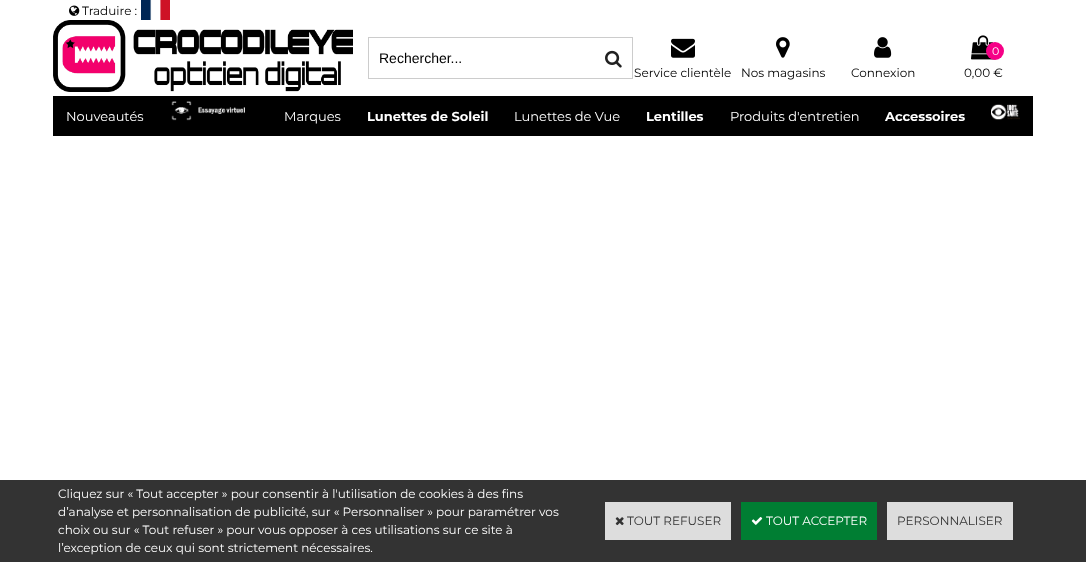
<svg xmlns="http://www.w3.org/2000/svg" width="1086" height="562">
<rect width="100%" height="100%" fill="#fff"/>
<image x="69" y="5" width="11" height="11" href="media/1.png"/>
<text x="82" y="15" style="font-family:Montserrat;font-size:12px;fill:#000">Traduire :</text>
<image x="141" y="0" width="29" height="20" href="media/2.png"/>
<image x="53" y="20" width="300" height="72" href="media/3.png"/>
<rect x="368.5" y="37.5" width="264" height="41" fill="none" stroke="#ccc"/>
<text x="379" y="63" style="font-family:Liberation Sans;font-size:14px;fill:#000">Rechercher...</text>
<image x="605" y="50" width="17" height="18" href="media/4.png"/>
<image x="971" y="35" width="24" height="25" href="media/5.png"/>
<circle cx="995" cy="51" r="9" fill="#f60087"/>
<text x="992" y="55" style="font-family:Montserrat;font-size:11px;fill:#fff">0</text>
<text x="964" y="77" style="font-family:Montserrat;font-size:12px;fill:#000">0,00 €</text>
<image x="671" y="38" width="24" height="20" href="media/6.png"/>
<text x="634" y="77" style="font-family:Montserrat;font-size:12px;fill:#000">Service clientèle</text>
<image x="776" y="37" width="14" height="21" href="media/7.png"/>
<text x="741" y="77" style="font-family:Montserrat;font-size:12px;fill:#000">Nos magasins</text>
<image x="874" y="37" width="18" height="21" href="media/8.png"/>
<text x="851" y="77" style="font-family:Montserrat;font-size:12px;fill:#000">Connexion</text>
<rect x="53" y="96" width="980" height="40" fill="#000"/>
<text x="66" y="121" style="font-family:Montserrat;font-size:13px;fill:#fff">Nouveautés</text>
<image x="171" y="101" width="74" height="20" href="media/9.png"/>
<text x="284" y="121" style="font-family:Montserrat;font-size:13px;fill:#fff">Marques</text>
<text x="367" y="121" style="font-family:Montserrat;font-size:13px;font-weight:bold;fill:#fff">Lunettes de Soleil</text>
<text x="514" y="121" style="font-family:Montserrat;font-size:13px;fill:#fff">Lunettes de Vue</text>
<text x="646" y="121" style="font-family:Montserrat;font-size:13px;font-weight:bold;fill:#fff">Lentilles</text>
<text x="730" y="121" style="font-family:Montserrat;font-size:13px;fill:#fff">Produits d'entretien</text>
<text x="885" y="121" style="font-family:Montserrat;font-size:13px;font-weight:bold;fill:#fff">Accessoires</text>
<image x="991" y="104" width="29" height="16" href="media/10.png"/>
<rect y="480" width="1086" height="82" fill="#333"/>
<text x="58" y="498" style="font-family:Montserrat;font-size:12px;fill:#fff">Cliquez sur « Tout accepter » pour consentir à l'utilisation de cookies à des fins</text>
<text x="58" y="516" style="font-family:Montserrat;font-size:12px;fill:#fff">d’analyse et personnalisation de publicité, sur « Personnaliser » pour paramétrer vos</text>
<text x="58" y="534" style="font-family:Montserrat;font-size:12px;fill:#fff">choix ou sur « Tout refuser » pour vous opposer à ces utilisations sur ce site à</text>
<text x="58" y="552" style="font-family:Montserrat;font-size:12px;fill:#fff">l’exception de ceux qui sont strictement nécessaires.</text>
<rect x="605" y="502" width="126" height="38" fill="#ddd"/>
<image x="615" y="517" width="9" height="9" href="media/11.png"/>
<text x="627" y="525" style="font-family:Montserrat;font-size:12px;fill:#333">TOUT REFUSER</text>
<rect x="741" y="502" width="136" height="38" fill="#007e33"/>
<image x="751" y="517" width="12" height="8" href="media/12.png"/>
<text x="766" y="525" style="font-family:Montserrat;font-size:12px;fill:#fff">TOUT ACCEPTER</text>
<rect x="887" y="502" width="126" height="38" fill="#ddd"/>
<text x="897" y="525" style="font-family:Montserrat;font-size:12px;fill:#333">PERSONNALISER</text>
</svg>
